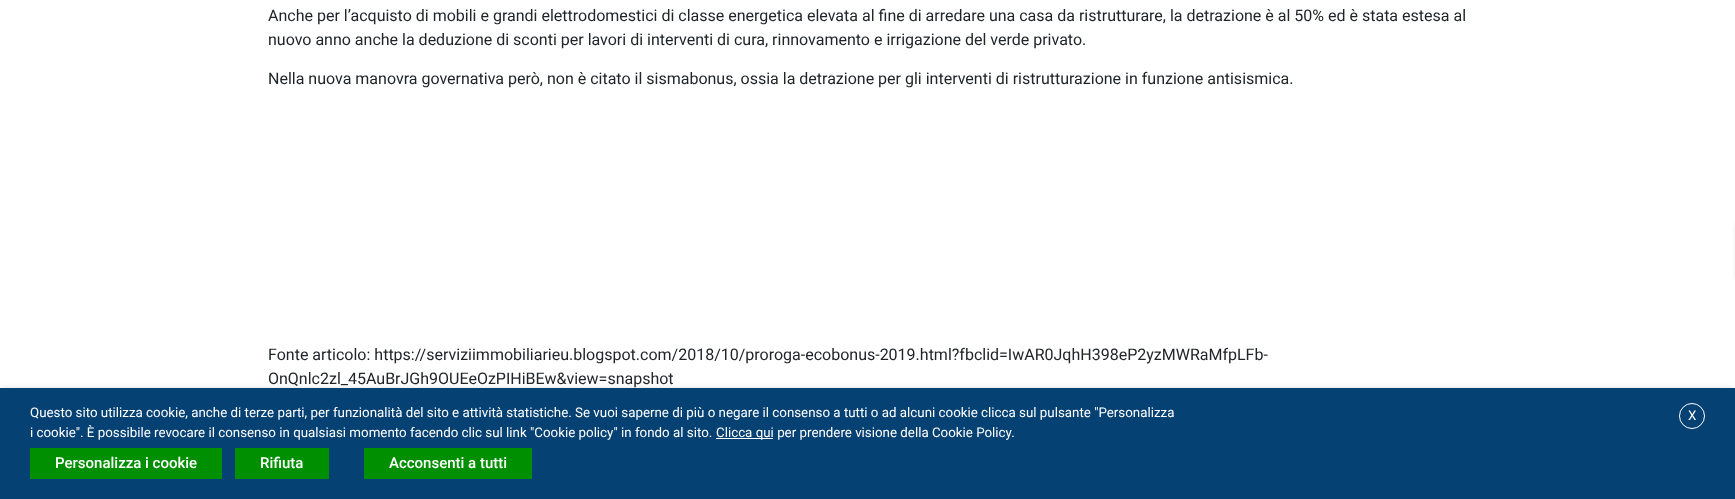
<svg xmlns="http://www.w3.org/2000/svg" width="1735" height="499">
<rect width="100%" height="100%" fill="#fff"/>
<text x="268" y="21" style="font-family:Roboto;font-size:16px;fill:#212529">Anche per l’acquisto di mobili e grandi elettrodomestici di classe energetica elevata al fine di arredare una casa da ristrutturare, la detrazione è al 50% ed è stata estesa al</text>
<text x="268" y="45" style="font-family:Roboto;font-size:16px;fill:#212529">nuovo anno anche la deduzione di sconti per lavori di interventi di cura, rinnovamento e irrigazione del verde privato.</text>
<text x="268" y="84" style="font-family:Roboto;font-size:16px;fill:#212529">Nella nuova manovra governativa però, non è citato il sismabonus, ossia la detrazione per gli interventi di ristrutturazione in funzione antisismica.</text>
<text x="268" y="360" style="font-family:Roboto;font-size:16px;fill:#212529">Fonte articolo: https://serviziimmobiliarieu.blogspot.com/2018/10/proroga-ecobonus-2019.html?fbclid=IwAR0JqhH398eP2yzMWRaMfpLFb-</text>
<text x="268" y="384" style="font-family:Roboto;font-size:16px;fill:#212529">OnQnlc2zl_45AuBrJGh9OUEeOzPIHiBEw&amp;view=snapshot</text>
<rect x="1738" y="224" width="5" height="54" fill="#777" filter="blur(2.5px)"/>
<rect y="393" width="1735" height="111" fill="#00000080" filter="blur(5px)"/>
<rect y="388" width="1735" height="111" fill="#064173"/>
<text x="30" y="417" style="font-family:Roboto;font-size:13.33px;fill:#fff">Questo sito utilizza cookie, anche di terze parti, per funzionalità del sito e attività statistiche. Se vuoi saperne di più o negare il consenso a tutti o ad alcuni cookie clicca sul pulsante "Personalizza</text>
<text x="30" y="437" style="font-family:Roboto;font-size:13.33px;fill:#fff">i cookie". È possibile revocare il consenso in qualsiasi momento facendo clic sul link "Cookie policy" in fondo al sito.</text>
<rect x="716" y="438" width="57" height="1" fill="#fff"/>
<text x="716" y="437" style="font-family:Roboto;font-size:13.33px;fill:#fff">Clicca qui per prendere visione della Cookie Policy.</text>
<rect x="30" y="448" width="192" height="31" fill="#008f00"/>
<text x="55" y="468" style="font-family:Roboto;font-size:15px;font-weight:500;fill:#fff">Personalizza i cookie</text>
<rect x="235" y="448" width="94" height="31" fill="#008f00"/>
<text x="260" y="468" style="font-family:Roboto;font-size:15px;font-weight:500;fill:#fff">Rifiuta</text>
<rect x="364" y="448" width="168" height="31" fill="#008f00"/>
<text x="389" y="468" style="font-family:Roboto;font-size:15px;font-weight:500;fill:#fff">Acconsenti a tutti</text>
<circle cx="1692" cy="416" r="12.5" fill="none" stroke="#fff"/>
<text x="1688" y="420" style="font-family:Roboto;font-size:13.33px;fill:#fff">X</text>
</svg>
